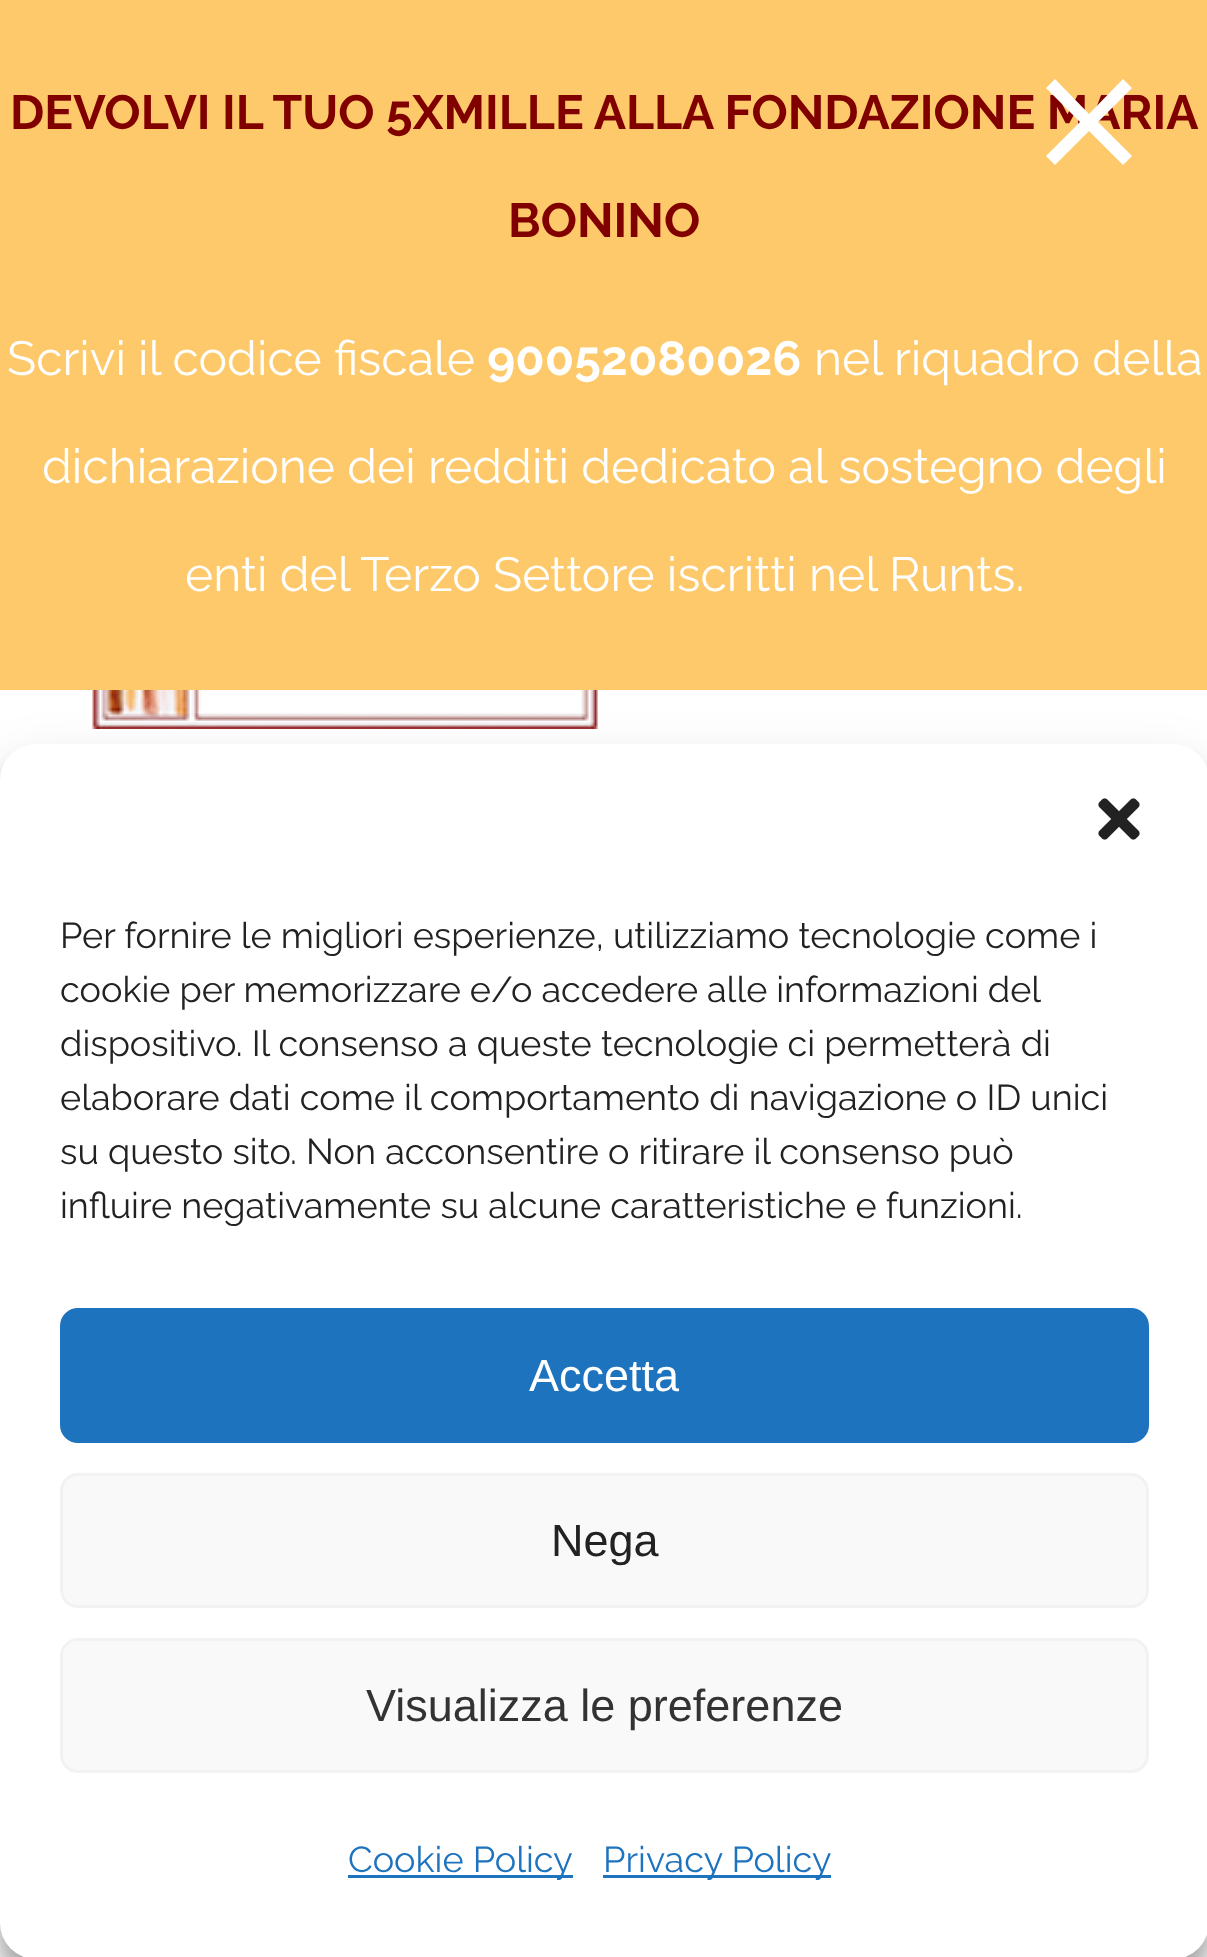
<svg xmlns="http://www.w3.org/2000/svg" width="1207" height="1957">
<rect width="100%" height="100%" fill="#fff"/>
<rect width="1207" height="690" fill="#fec96b"/>
<text x="10" y="129" style="font-family:Raleway;font-size:48px;font-weight:bold;fill:#800000">DEVOLVI IL TUO 5XMILLE ALLA FONDAZIONE MARIA</text>
<path d="M1132 88l-34 34l34 34l-9 9l-34-34l-34 34l-9-9l34-34l-34-34l9-9l34 35l34-35z" fill="#fff"/>
<text x="508" y="237" style="font-family:Raleway;font-size:48px;font-weight:bold;fill:#800000">BONINO</text>
<text x="7" y="375" style="font-family:Raleway;font-size:48px;fill:#fff">Scrivi il codice fiscale</text>
<text x="487" y="375" style="font-family:Raleway;font-size:48px;font-weight:bold;fill:#fff">90052080026</text>
<text x="814" y="375" style="font-family:Raleway;font-size:48px;fill:#fff">nel riquadro della</text>
<text x="42" y="483" style="font-family:Raleway;font-size:48px;fill:#fff">dichiarazione dei redditi dedicato al sostegno degli</text>
<text x="185" y="591" style="font-family:Raleway;font-size:48px;fill:#fff">enti del Terzo Settore iscritti nel Runts.</text>
<image x="92" y="690" width="506" height="39" href="media/1.png"/>
<rect y="762" width="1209" height="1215" rx="36" fill="#0000003b" filter="blur(9px)"/>
<rect y="774" width="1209" height="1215" rx="36" fill="#00000030" filter="blur(30px)"/>
<rect y="744" width="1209" height="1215" rx="36" fill="#fff"/>
<image x="1098" y="798" width="42" height="42" href="media/2.png"/>
<text x="60" y="948" style="font-family:Raleway;font-size:36px;fill:#222">Per fornire le migliori esperienze, utilizziamo tecnologie come i</text>
<text x="60" y="1002" word-spacing="-0.25" style="font-family:Raleway;font-size:36px;fill:#222">cookie per memorizzare e/o accedere alle informazioni del</text>
<text x="60" y="1056" style="font-family:Raleway;font-size:36px;fill:#222">dispositivo. Il consenso a queste tecnologie ci permetterà di</text>
<text x="60" y="1110" style="font-family:Raleway;font-size:36px;fill:#222">elaborare dati come il comportamento di navigazione o ID unici</text>
<text x="60" y="1164" style="font-family:Raleway;font-size:36px;fill:#222">su questo sito. Non acconsentire o ritirare il consenso può</text>
<text x="60" y="1218" style="font-family:Raleway;font-size:36px;fill:#222">influire negativamente su alcune caratteristiche e funzioni.</text>
<rect x="61.5" y="1309.5" width="1086" height="132" rx="16.5" fill="#1e73be" stroke="#1e73be" stroke-width="3"/>
<text x="529" y="1391" style="font-family:Liberation Sans;font-size:45px;fill:#fff">Accetta</text>
<rect x="61.5" y="1474.5" width="1086" height="132" rx="16.5" fill="#f9f9f9" stroke="#f2f2f2" stroke-width="3"/>
<text x="551" y="1556" style="font-family:Liberation Sans;font-size:45px;fill:#222">Nega</text>
<rect x="61.5" y="1639.5" width="1086" height="132" rx="16.5" fill="#f9f9f9" stroke="#f2f2f2" stroke-width="3"/>
<text x="366" y="1721" style="font-family:Liberation Sans;font-size:45px;fill:#333">Visualizza le preferenze</text>
<rect x="348" y="1875" width="225" height="3" fill="#1e73be"/>
<text x="348" y="1872" style="font-family:Raleway;font-size:36px;fill:#1e73be">Cookie Policy</text>
<rect x="603" y="1875" width="228" height="3" fill="#1e73be"/>
<text x="603" y="1872" style="font-family:Raleway;font-size:36px;fill:#1e73be">Privacy Policy</text>
</svg>
